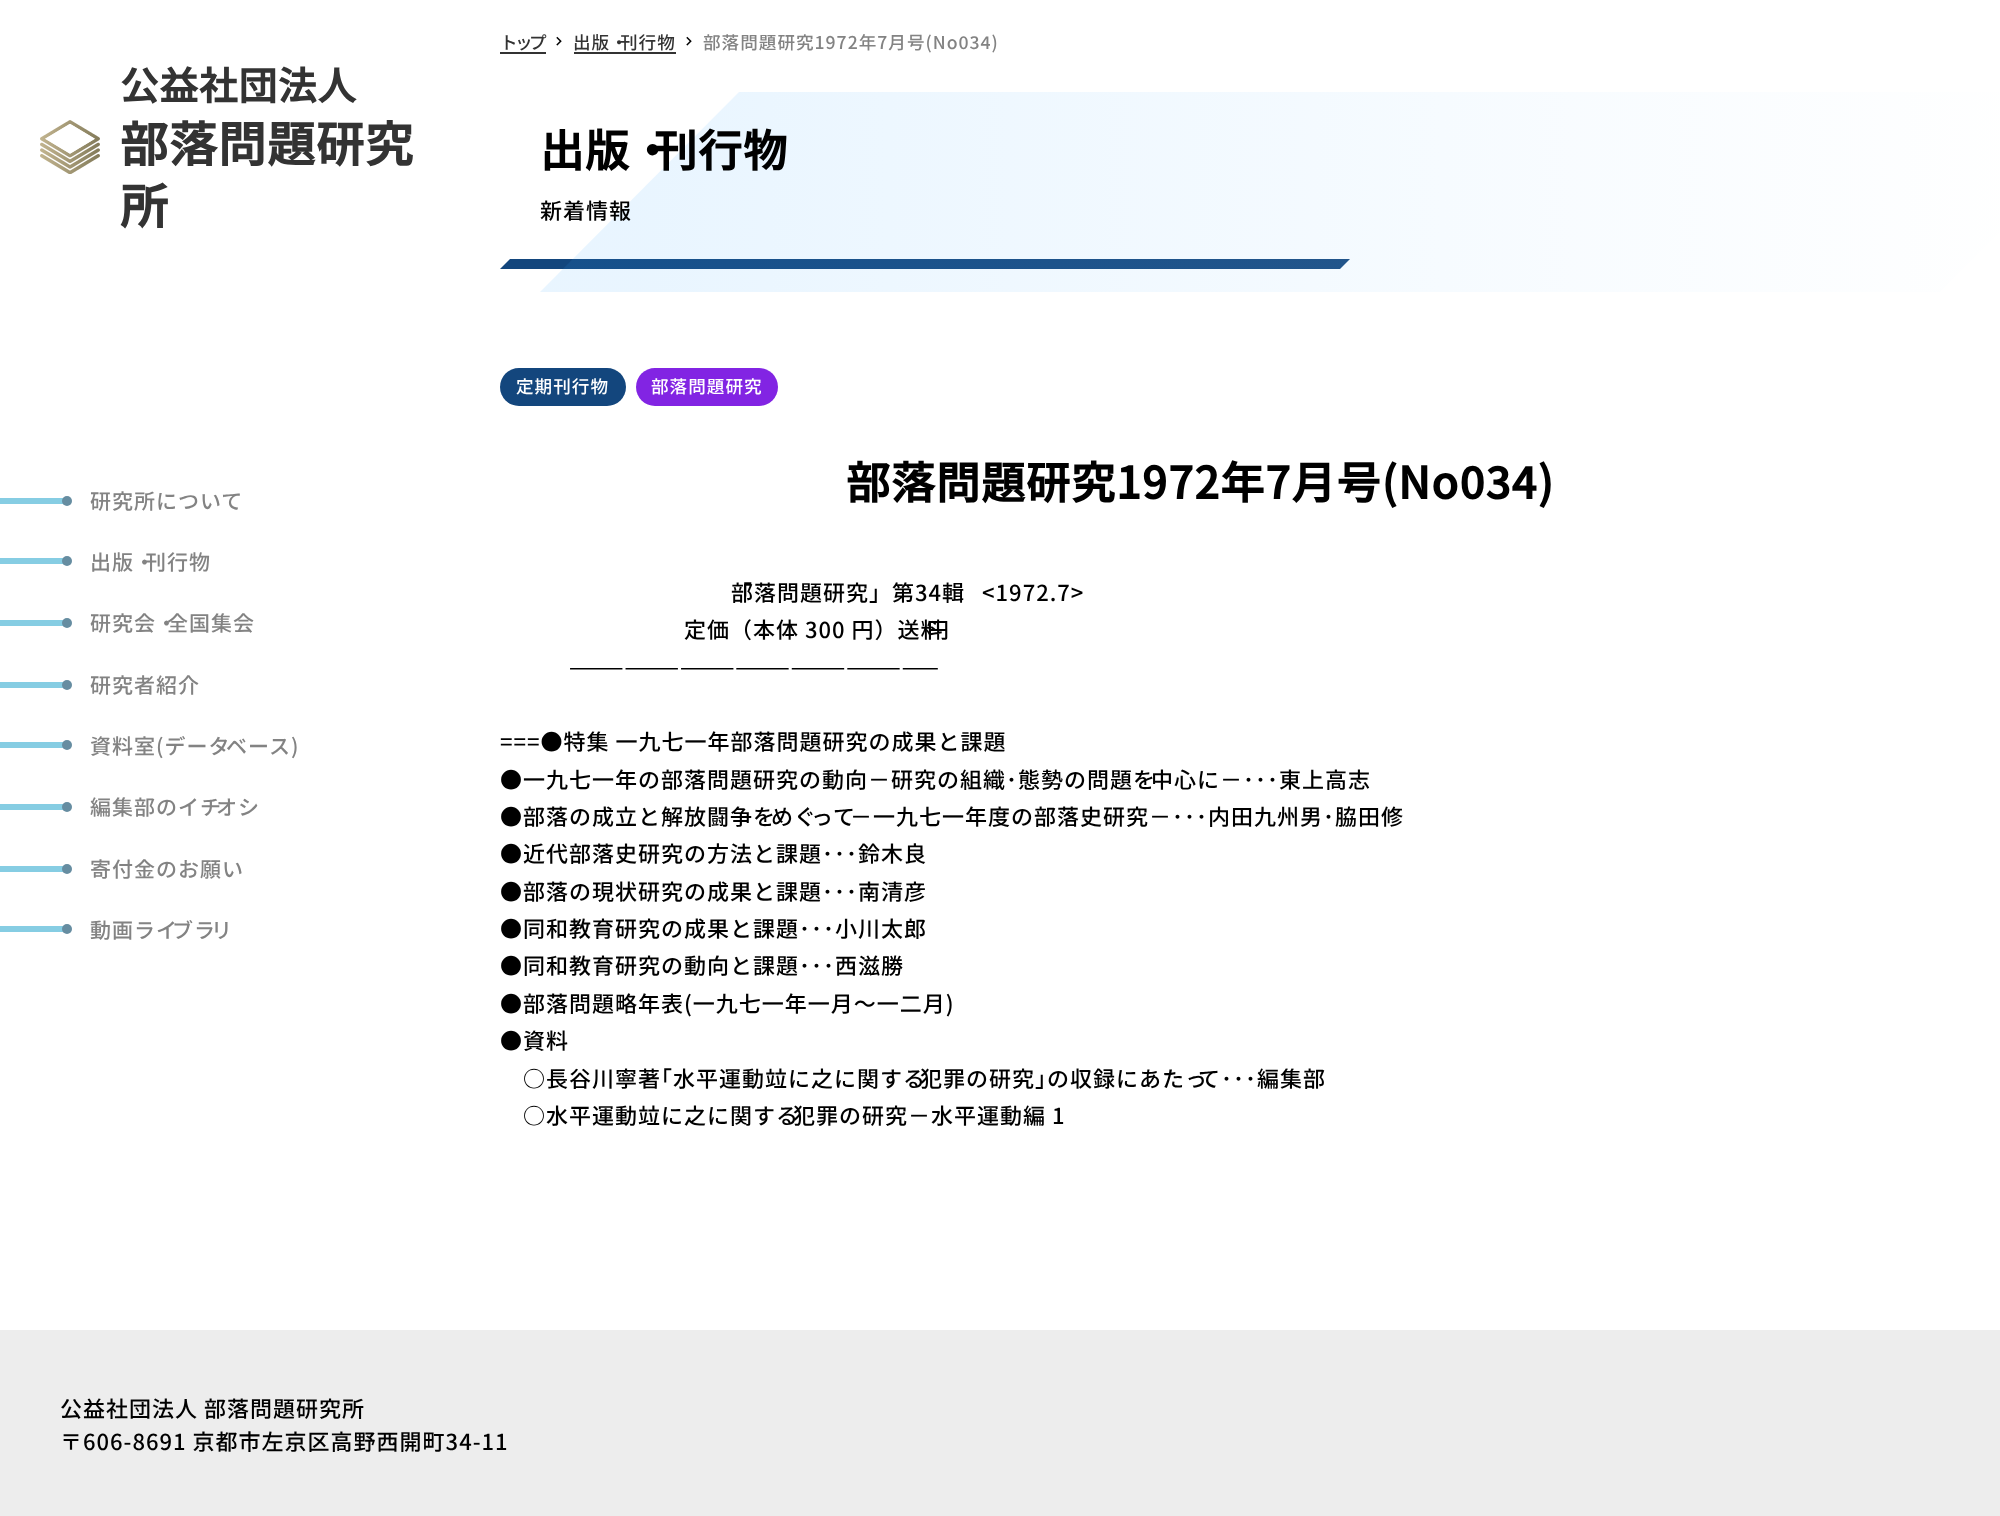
<svg xmlns="http://www.w3.org/2000/svg" width="2000" height="1516">
<defs>
<linearGradient id="g1" gradientUnits="userSpaceOnUse" x1="640" y1="192" x2="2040" y2="192"><stop offset="0" stop-color="#35a5ff" stop-opacity="0.11"/><stop offset="1" stop-color="#fff" stop-opacity="0.1"/></linearGradient>
</defs>
<rect width="100%" height="100%" fill="#fff"/>
<image x="40" y="120" width="60" height="54" href="media/1.png"/>
<text x="120" y="100" style="font-family:Noto Sans JP;font-size:38.5px;font-weight:bold;letter-spacing:1px;fill:#333">公益社団法人</text>
<text x="120" y="162" style="font-family:Noto Sans JP;font-size:48px;font-weight:bold;letter-spacing:1px;fill:#333">部落問題研究</text>
<text x="120" y="224" style="font-family:Noto Sans JP;font-size:48px;font-weight:bold;letter-spacing:1px;fill:#333">所</text>
<rect y="498" width="66" height="6" fill="#86cde3"/>
<circle cx="67" cy="501" r="5" fill="#668da1"/>
<text x="90" y="509" style="font-family:Noto Sans JP;font-size:21px;font-weight:100;letter-spacing:1px;fill:#838383">研究所について</text>
<rect y="558" width="66" height="6" fill="#86cde3"/>
<circle cx="67" cy="561" r="5" fill="#668da1"/>
<text x="90" y="570" style="font-family:Noto Sans JP;font-size:21px;font-weight:100;letter-spacing:1px;fill:#838383">出版・</text>
<text x="145" y="570" style="font-family:Noto Sans JP;font-size:21px;font-weight:100;letter-spacing:1px;fill:#838383">刊行物</text>
<rect y="620" width="66" height="6" fill="#86cde3"/>
<circle cx="67" cy="623" r="5" fill="#668da1"/>
<text x="90" y="631" style="font-family:Noto Sans JP;font-size:21px;font-weight:100;letter-spacing:1px;fill:#838383">研究会・</text>
<text x="167" y="631" style="font-family:Noto Sans JP;font-size:21px;font-weight:100;letter-spacing:1px;fill:#838383">全国集会</text>
<rect y="682" width="66" height="6" fill="#86cde3"/>
<circle cx="67" cy="685" r="5" fill="#668da1"/>
<text x="90" y="693" style="font-family:Noto Sans JP;font-size:21px;font-weight:100;letter-spacing:1px;fill:#838383">研究者紹介</text>
<rect y="742" width="66" height="6" fill="#86cde3"/>
<circle cx="67" cy="745" r="5" fill="#668da1"/>
<text x="90" y="754" style="font-family:Noto Sans JP;font-size:21px;font-weight:100;letter-spacing:1px;fill:#838383">資料室(データ</text>
<text x="226" y="754" style="font-family:Noto Sans JP;font-size:21px;font-weight:100;letter-spacing:1px;fill:#838383">ベース)</text>
<rect y="804" width="66" height="6" fill="#86cde3"/>
<circle cx="67" cy="807" r="5" fill="#668da1"/>
<text x="90" y="815" style="font-family:Noto Sans JP;font-size:21px;font-weight:100;letter-spacing:1px;fill:#838383">編集部のイチ</text>
<text x="216" y="815" style="font-family:Noto Sans JP;font-size:21px;font-weight:100;letter-spacing:1px;fill:#838383">オシ</text>
<rect y="866" width="66" height="6" fill="#86cde3"/>
<circle cx="67" cy="869" r="5" fill="#668da1"/>
<text x="90" y="877" style="font-family:Noto Sans JP;font-size:21px;font-weight:100;letter-spacing:1px;fill:#838383">寄付金のお願い</text>
<rect y="926" width="66" height="6" fill="#86cde3"/>
<circle cx="67" cy="929" r="5" fill="#668da1"/>
<text x="90" y="938" style="font-family:Noto Sans JP;font-size:21px;font-weight:100;letter-spacing:1px;fill:#838383">動画ライ</text>
<text x="172" y="938" style="font-family:Noto Sans JP;font-size:21px;font-weight:100;letter-spacing:1px;fill:#838383">ブラ</text>
<text x="211" y="938" style="font-family:Noto Sans JP;font-size:21px;font-weight:100;letter-spacing:1px;fill:#838383">リ</text>
<text x="500" y="49" style="font-family:Noto Sans JP;font-size:17.6px;font-weight:100;letter-spacing:1px;fill:#333">ト</text>
<text x="515" y="49" style="font-family:Noto Sans JP;font-size:17.6px;font-weight:100;letter-spacing:1px;fill:#333">ッ</text>
<text x="529" y="49" style="font-family:Noto Sans JP;font-size:17.6px;font-weight:100;letter-spacing:1px;fill:#333">プ</text>
<rect x="500" y="52" width="46" height="2" fill="#333"/>
<image x="556" y="36" width="6" height="10" href="media/2.png"/>
<text x="573" y="49" style="font-family:Noto Sans JP;font-size:17.6px;font-weight:100;letter-spacing:1px;fill:#333">出版・</text>
<text x="620" y="49" style="font-family:Noto Sans JP;font-size:17.6px;font-weight:100;letter-spacing:1px;fill:#333">刊行物</text>
<rect x="574" y="52" width="102" height="2" fill="#333"/>
<image x="686" y="36" width="6" height="10" href="media/2.png"/>
<text x="703" y="49" style="font-family:Noto Sans JP;font-size:17.6px;font-weight:100;letter-spacing:1px;fill:#838383">部落問題研究1972年7月号(No034)</text>
<path d="M510 259h840l-10 10h-840z" fill="#13467d"/>
<path d="M739 92h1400l-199 200h-1400z" fill="url(#g1)"/>
<text x="540" y="167" style="font-family:Noto Sans JP;font-size:44px;font-weight:bold;letter-spacing:1px;fill:#000">出版・</text>
<text x="653" y="167" style="font-family:Noto Sans JP;font-size:44px;font-weight:bold;letter-spacing:1px;fill:#000">刊行物</text>
<text x="540" y="219" style="font-family:Noto Sans JP;font-size:22px;font-weight:100;letter-spacing:1px;fill:#000">新着情報</text>
<rect x="500" y="368" width="126" height="38" rx="19" fill="#13467d"/>
<text x="516" y="393" style="font-family:Noto Sans JP;font-size:17.6px;font-weight:100;letter-spacing:1px;fill:#fff">定期刊行物</text>
<rect x="636" y="368" width="142" height="38" rx="19" fill="#8224e3"/>
<text x="651" y="393" style="font-family:Noto Sans JP;font-size:17.6px;font-weight:100;letter-spacing:1px;fill:#fff">部落問題研究</text>
<text x="846" y="499" style="font-family:Noto Sans JP;font-size:44px;font-weight:bold;letter-spacing:1px;fill:#000">部落問題研究1972年7月号(No034)</text>
<text x="730" y="601" word-spacing="11" style="font-family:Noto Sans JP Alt;font-size:22px;font-weight:100;letter-spacing:1px;fill:#000">「</text>
<text x="731" y="601" word-spacing="11" style="font-family:Noto Sans JP Alt;font-size:22px;font-weight:100;letter-spacing:1px;fill:#000">部落問題研究」第34輯 &lt;1972.7&gt;</text>
<text x="684" y="638" style="font-family:Noto Sans JP Alt;font-size:22px;font-weight:100;letter-spacing:1px;fill:#000">定価（本体 300 円）送料</text>
<text x="927" y="638" style="font-family:Noto Sans JP;font-size:22px;font-weight:100;letter-spacing:1px;fill:#000">円</text>
<text x="569" y="675" style="font-family:Noto Sans JP;font-size:22px;font-weight:100;letter-spacing:1px;fill:#000">————————————————————</text>
<text x="500" y="750" style="font-family:Noto Sans JP;font-size:22px;font-weight:100;letter-spacing:1px;fill:#000">===●特集 一九七一年部落問題研究の成果と課題</text>
<text x="500" y="788" style="font-family:Noto Sans JP;font-size:22px;font-weight:100;letter-spacing:1px;fill:#000">●一九七一年の部落問題研究の動向－研究の組織･態勢の問題を</text>
<text x="1151" y="788" style="font-family:Noto Sans JP;font-size:22px;font-weight:100;letter-spacing:1px;fill:#000">中心に－･･･東上高志</text>
<text x="500" y="825" style="font-family:Noto Sans JP;font-size:22px;font-weight:100;letter-spacing:1px;fill:#000">●部落の成立と解放闘争を</text>
<text x="771" y="825" style="font-family:Noto Sans JP;font-size:22px;font-weight:100;letter-spacing:1px;fill:#000">めぐ</text>
<text x="811" y="825" style="font-family:Noto Sans JP;font-size:22px;font-weight:100;letter-spacing:1px;fill:#000">って</text>
<text x="850" y="825" style="font-family:Noto Sans JP;font-size:22px;font-weight:100;letter-spacing:1px;fill:#000">－一九七一年度の部落史研究－･･･内田九州男･脇田修</text>
<text x="500" y="862" style="font-family:Noto Sans JP;font-size:22px;font-weight:100;letter-spacing:1px;fill:#000">●近代部落史研究の方法と課題･･･鈴木良</text>
<text x="500" y="900" style="font-family:Noto Sans JP;font-size:22px;font-weight:100;letter-spacing:1px;fill:#000">●部落の現状研究の成果と課題･･･南清彦</text>
<text x="500" y="937" style="font-family:Noto Sans JP;font-size:22px;font-weight:100;letter-spacing:1px;fill:#000">●同和教育研究の成果と課題･･･小川太郎</text>
<text x="500" y="974" style="font-family:Noto Sans JP;font-size:22px;font-weight:100;letter-spacing:1px;fill:#000">●同和教育研究の動向と課題･･･西滋勝</text>
<text x="500" y="1012" style="font-family:Noto Sans JP;font-size:22px;font-weight:100;letter-spacing:1px;fill:#000">●部落問題略年表(一九七一年一月～一二月)</text>
<text x="500" y="1049" style="font-family:Noto Sans JP;font-size:22px;font-weight:100;letter-spacing:1px;fill:#000">●資料</text>
<text x="523" y="1087" style="font-family:Noto Sans JP;font-size:22px;font-weight:100;letter-spacing:1px;fill:#000">○長谷川寧著｢水平運動竝に之に関する</text>
<text x="920" y="1087" style="font-family:Noto Sans JP;font-size:22px;font-weight:100;letter-spacing:1px;fill:#000">犯罪の研究｣の収録にあたっ</text>
<text x="1198" y="1087" style="font-family:Noto Sans JP;font-size:22px;font-weight:100;letter-spacing:1px;fill:#000">て･･･編集部</text>
<text x="523" y="1124" style="font-family:Noto Sans JP;font-size:22px;font-weight:100;letter-spacing:1px;fill:#000">○水平運動竝に之に関する</text>
<text x="793" y="1124" style="font-family:Noto Sans JP;font-size:22px;font-weight:100;letter-spacing:1px;fill:#000">犯罪の研究－水平運動編 1</text>
<rect y="1330" width="2000" height="186" fill="#ededed"/>
<text x="60" y="1417" style="font-family:Noto Sans JP;font-size:22px;font-weight:100;letter-spacing:1px;fill:#000">公益社団法人 部落問題研究所</text>
<text x="60" y="1450" style="font-family:Noto Sans JP Alt;font-size:22px;font-weight:100;letter-spacing:1px;fill:#000">〒606-8691 京都市左京区高野西開町34-11</text>
</svg>
